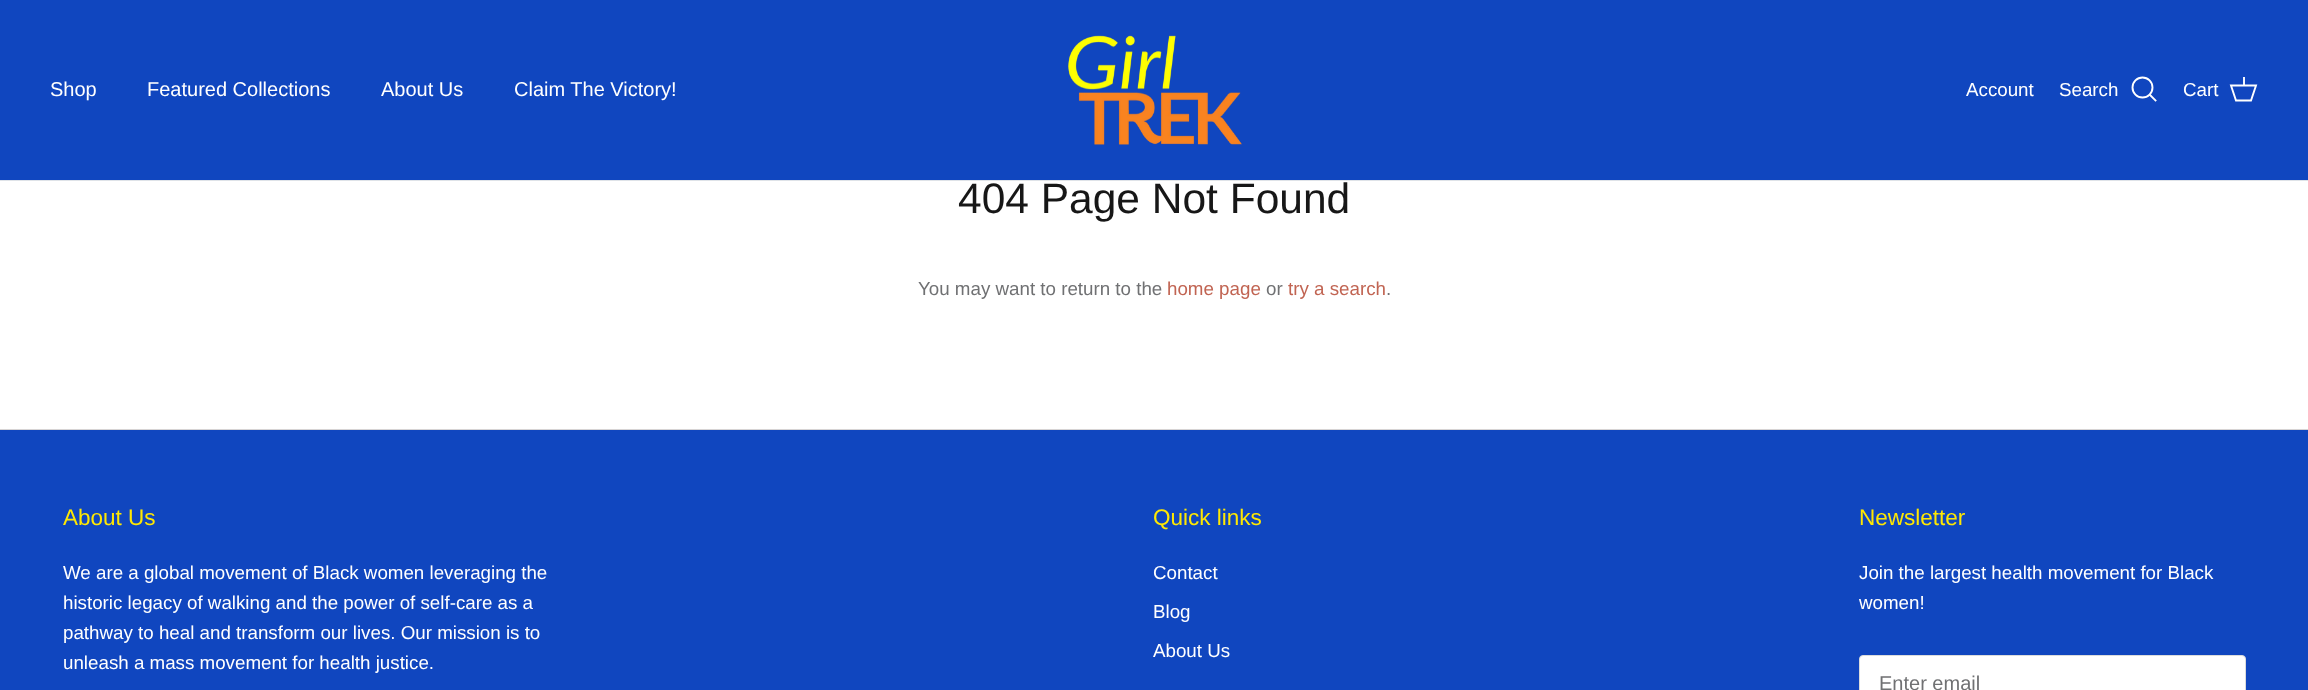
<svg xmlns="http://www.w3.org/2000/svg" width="2308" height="690">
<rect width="100%" height="100%" fill="#fff"/>
<rect width="2308" height="180" fill="#1046bf"/>
<rect y="180" width="2308" height="1" fill="#dfe3e8"/>
<text x="50" y="96" style="font-family:Liberation Sans;font-size:20px;fill:#fff">Shop</text>
<text x="147" y="96" style="font-family:Liberation Sans;font-size:20px;fill:#fff">Featured Collections</text>
<text x="381" y="96" style="font-family:Liberation Sans;font-size:20px;fill:#fff">About Us</text>
<text x="514" y="96" style="font-family:Liberation Sans;font-size:20px;fill:#fff">Claim The Victory!</text>
<image x="1068" y="35" width="174" height="110" href="media/1.png"/>
<text x="1966" y="96" style="font-family:Liberation Sans;font-size:18.75px;fill:#fff">Account</text>
<text x="2059" y="96" style="font-family:Liberation Sans;font-size:18.75px;fill:#fff">Search</text>
<circle cx="2142.5" cy="87.5" r="10" fill="none" stroke="#fff" stroke-width="1.9"/>
<path d="M2150 95l5.5 5.5" fill="none" stroke="#fff" stroke-width="1.9" stroke-linecap="square"/>
<text x="2183" y="96" style="font-family:Liberation Sans;font-size:18.75px;fill:#fff">Cart</text>
<path d="M2231 85.5h25l-5 15h-15z" fill="none" stroke="#fff" stroke-width="1.9"/>
<rect x="2243" y="77" width="2" height="9" fill="#fffffff2"/>
<text x="958" y="213" style="font-family:Liberation Sans;font-size:42.5px;fill:#171717">404 Page Not Found</text>
<text x="918" y="295" style="font-family:Liberation Sans;font-size:18.75px;fill:#707173">You may want to return to the</text>
<text x="1167" y="295" style="font-family:Liberation Sans;font-size:18.75px;fill:#c16452">home page</text>
<text x="1266" y="295" style="font-family:Liberation Sans;font-size:18.75px;fill:#707173">or</text>
<text x="1288" y="295" style="font-family:Liberation Sans;font-size:18.75px;fill:#c16452">try a search</text>
<text x="1386" y="295" style="font-family:Liberation Sans;font-size:18.75px;fill:#707173">.</text>
<rect y="430" width="2308" height="260" fill="#1046bf"/>
<rect y="429" width="2308" height="1" fill="#d7d4d4"/>
<text x="63" y="525" style="font-family:Liberation Sans;font-size:22.5px;fill:#ffe802">About Us</text>
<text x="63" y="579" style="font-family:Liberation Sans;font-size:18.75px;fill:#fff">We are a global movement of Black women leveraging the</text>
<text x="63" y="609" style="font-family:Liberation Sans;font-size:18.75px;fill:#fff">historic legacy of walking and the power of self-care as a</text>
<text x="63" y="639" style="font-family:Liberation Sans;font-size:18.75px;fill:#fff">pathway to heal and transform our lives. Our mission is to</text>
<text x="63" y="669" style="font-family:Liberation Sans;font-size:18.75px;fill:#fff">unleash a mass movement for health justice.</text>
<text x="1153" y="525" style="font-family:Liberation Sans;font-size:22.5px;fill:#ffe802">Quick links</text>
<text x="1153" y="579" style="font-family:Liberation Sans;font-size:18.75px;fill:#fff">Contact</text>
<text x="1153" y="618" style="font-family:Liberation Sans;font-size:18.75px;fill:#fff">Blog</text>
<text x="1153" y="657" style="font-family:Liberation Sans;font-size:18.75px;fill:#fff">About Us</text>
<text x="1859" y="525" style="font-family:Liberation Sans;font-size:22.5px;fill:#ffe802">Newsletter</text>
<text x="1859" y="579" style="font-family:Liberation Sans;font-size:18.75px;fill:#fff">Join the largest health movement for Black</text>
<text x="1859" y="609" style="font-family:Liberation Sans;font-size:18.75px;fill:#fff">women!</text>
<rect x="1859.5" y="655.5" width="386" height="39" rx="3.5" fill="#fff" stroke="#dbdcdc"/>
<text x="1879" y="690" style="font-family:Liberation Sans;font-size:20px;fill:#707173">Enter email</text>
</svg>
